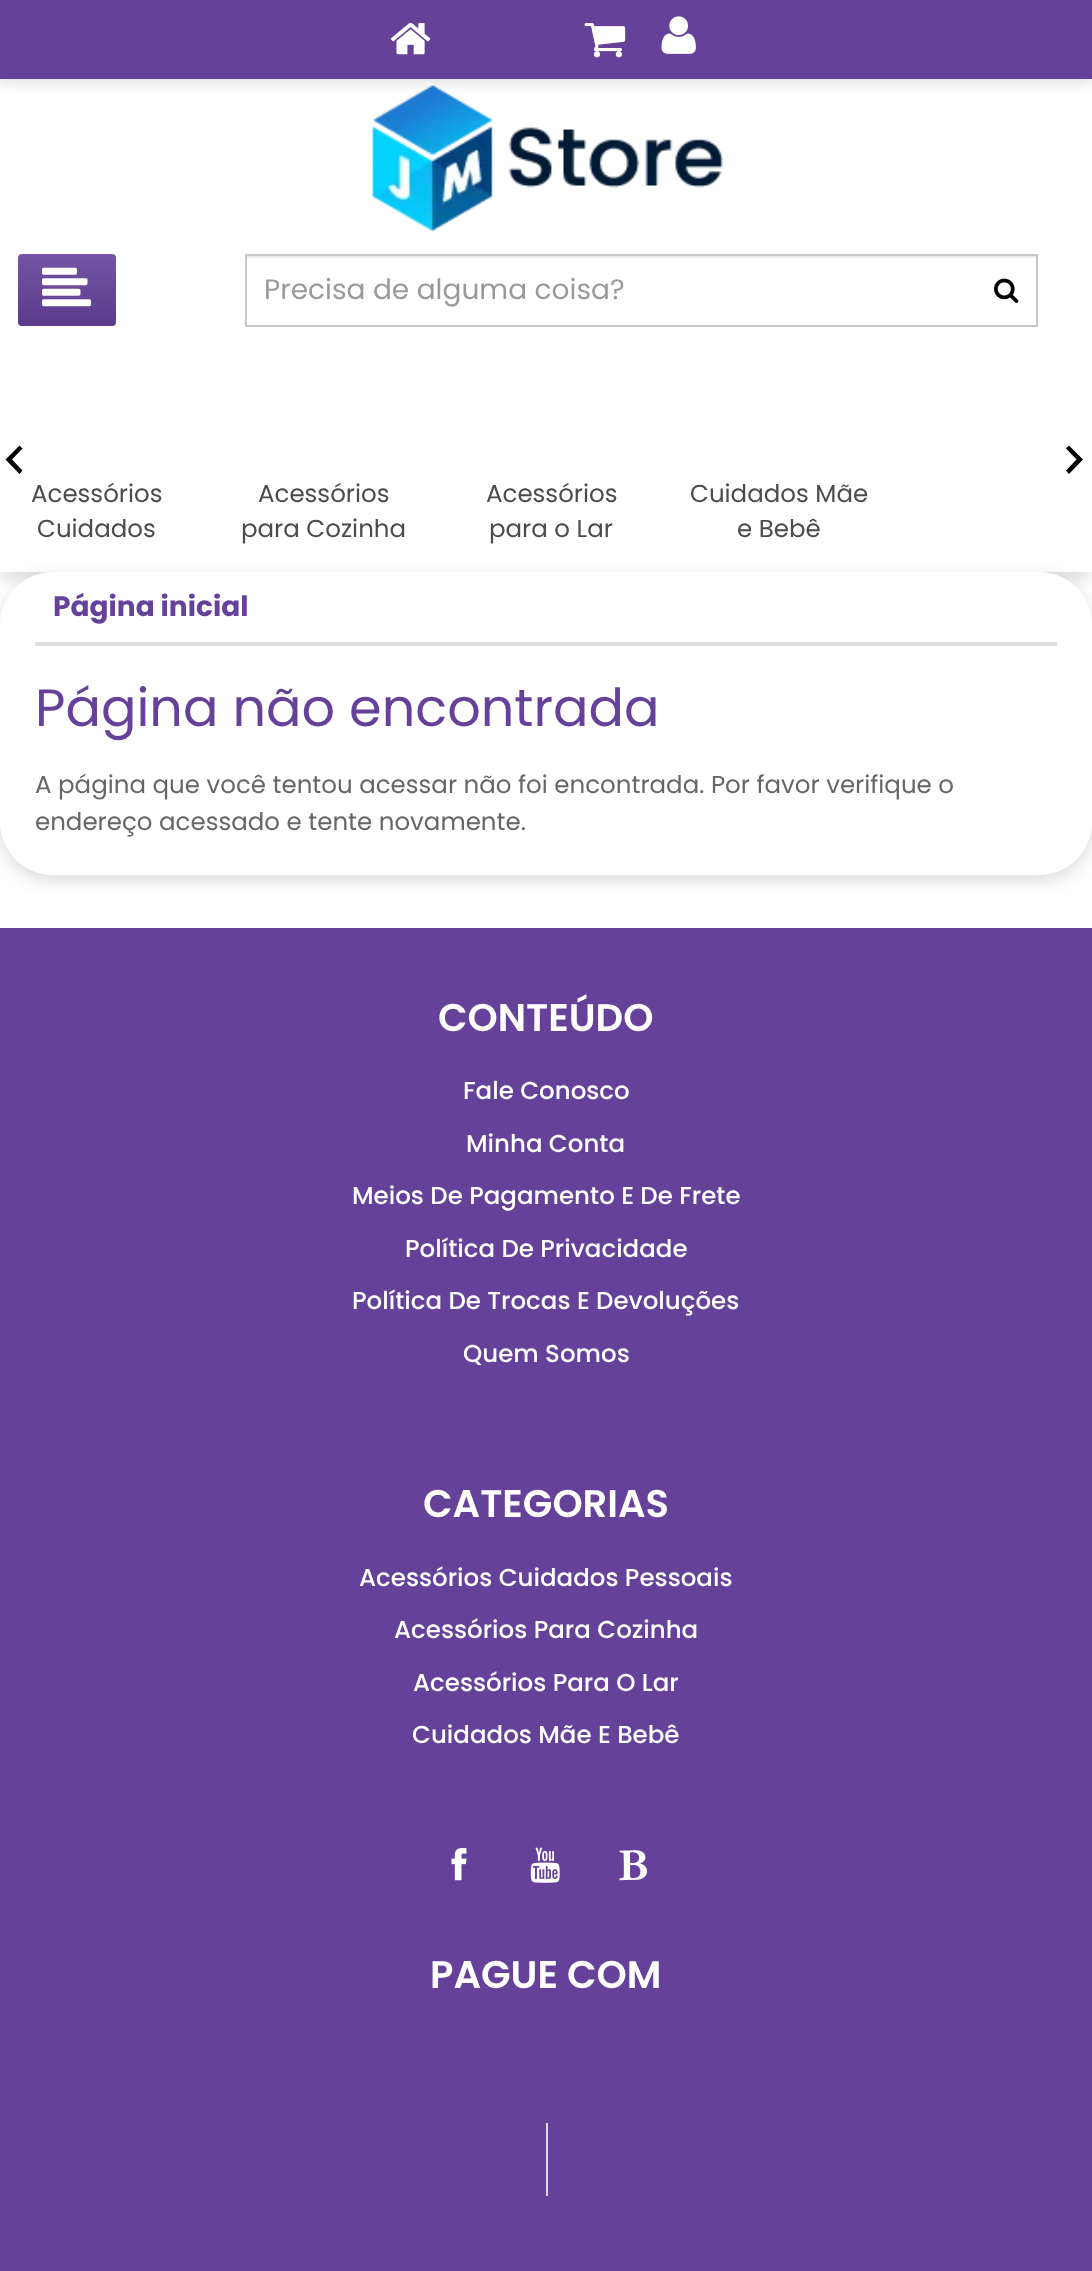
<svg xmlns="http://www.w3.org/2000/svg" width="1092" height="2271">
<defs>
<clipPath id="clip1"><rect x="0" y="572" width="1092" height="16"/></clipPath>
<linearGradient id="g1" gradientUnits="userSpaceOnUse" x1="67" y1="254" x2="67" y2="326"><stop offset="0" stop-color="#fff" stop-opacity="0.1"/><stop offset="1" stop-color="#000" stop-opacity="0.1"/></linearGradient>
</defs>
<rect width="100%" height="100%" fill="#fff"/>
<g clip-path="url(#clip1)">
<rect y="84" width="1092" height="494" fill="#00000026" filter="blur(9px)"/>
</g>
<image x="372" y="85" width="351" height="146" href="media/4.png"/>
<rect x="-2" y="-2" width="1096" height="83" fill="#00000029" filter="blur(8px)"/>
<rect width="1092" height="79" fill="#65419a"/>
<image x="390" y="22" width="41" height="33" href="media/1.png"/>
<image x="584" y="23" width="42" height="35" href="media/2.png"/>
<image x="661" y="16" width="35" height="38" href="media/3.png"/>
<rect x="18" y="254" width="98" height="72" rx="4" fill="#65419a"/>
<rect x="18" y="254" width="98" height="72" rx="4" fill="url(#g1)"/>
<image x="42" y="267" width="49" height="40" href="media/5.png"/>
<rect x="247" y="256" width="789" height="2" fill="#ececec"/>
<rect x="246" y="255" width="791" height="71" fill="none" stroke="#c7c7c7" stroke-width="2"/>
<text x="264" y="299" style="font-family:Poppins;font-size:28px;fill:#999">Precisa de alguma coisa?</text>
<image x="994" y="278" width="25" height="25" href="media/6.png"/>
<path d="M22.5 448.5l-3-3l-14 14l14 14.5l3-3.5l-10.5-11z" fill="#000"/>
<path d="M1066 470.5l3 3.5l14-14.5l-14-14l-3 3l10.5 11z" fill="#000"/>
<text x="31" y="502" style="font-family:Poppins;font-size:24.5px;fill:#4c4b4b">Acessórios</text>
<text x="37" y="537" style="font-family:Poppins;font-size:24.5px;fill:#4c4b4b">Cuidados</text>
<text x="258" y="502" style="font-family:Poppins;font-size:24.5px;fill:#4c4b4b">Acessórios</text>
<text x="241" y="537" style="font-family:Poppins;font-size:24.5px;fill:#4c4b4b">para Cozinha</text>
<text x="486" y="502" style="font-family:Poppins;font-size:24.5px;fill:#4c4b4b">Acessórios</text>
<text x="489" y="537" style="font-family:Poppins;font-size:24.5px;fill:#4c4b4b">para o Lar</text>
<text x="690" y="502" style="font-family:Poppins;font-size:24.5px;fill:#4c4b4b">Cuidados Mãe</text>
<text x="737" y="537" style="font-family:Poppins;font-size:24.5px;fill:#4c4b4b">e Bebê</text>
<rect y="578" width="1092" height="302" rx="53" fill="#00000026" filter="blur(9px)"/>
<rect y="572" width="1092" height="303" rx="53" fill="#fff"/>
<rect x="35" y="642" width="1022" height="4" fill="#dedede"/>
<text x="53" y="616" style="font-family:Poppins;font-size:28px;font-weight:bold;fill:#65419a">Página inicial</text>
<text x="35" y="726" style="font-family:Poppins;font-size:52.5px;fill:#65419a">Página não encontrada</text>
<text x="35" y="793" style="font-family:Poppins;font-size:24.5px;fill:#666">A página que você tentou acessar não foi encontrada. Por favor verifique o</text>
<text x="35" y="830" style="font-family:Poppins;font-size:24.5px;fill:#666">endereço acessado e tente novamente.</text>
<rect y="928" width="1092" height="1343" fill="#65419a"/>
<text x="438" y="1031" style="font-family:Poppins;font-size:38.5px;font-weight:600;fill:#fff">CONTEÚDO</text>
<text x="463" y="1099" style="font-family:Poppins;font-size:24.5px;font-weight:500;fill:#fff">Fale Conosco</text>
<text x="466" y="1152" style="font-family:Poppins;font-size:24.5px;font-weight:500;fill:#fff">Minha Conta</text>
<text x="352" y="1204" style="font-family:Poppins;font-size:24.5px;font-weight:500;fill:#fff">Meios De Pagamento E De Frete</text>
<text x="405" y="1257" style="font-family:Poppins;font-size:24.5px;font-weight:500;fill:#fff">Política De Privacidade</text>
<text x="352" y="1309" style="font-family:Poppins;font-size:24.5px;font-weight:500;fill:#fff">Política De Trocas E Devoluções</text>
<text x="463" y="1362" style="font-family:Poppins;font-size:24.5px;font-weight:500;fill:#fff">Quem Somos</text>
<text x="423" y="1517" style="font-family:Poppins;font-size:38.5px;font-weight:600;fill:#fff">CATEGORIAS</text>
<text x="359" y="1586" style="font-family:Poppins;font-size:24.5px;font-weight:500;fill:#fff">Acessórios Cuidados Pessoais</text>
<text x="394" y="1638" style="font-family:Poppins;font-size:24.5px;font-weight:500;fill:#fff">Acessórios Para Cozinha</text>
<text x="413" y="1691" style="font-family:Poppins;font-size:24.5px;font-weight:500;fill:#fff">Acessórios Para O Lar</text>
<text x="412" y="1743" style="font-family:Poppins;font-size:24.5px;font-weight:500;fill:#fff">Cuidados Mãe E Bebê</text>
<image x="451" y="1848" width="16" height="33" href="media/7.png"/>
<image x="530" y="1847" width="30" height="36" href="media/8.png"/>
<image x="619" y="1850" width="28" height="31" href="media/9.png"/>
<text x="430" y="1988" style="font-family:Poppins;font-size:38.5px;font-weight:600;fill:#fff">PAGUE COM</text>
<rect x="546" y="2123" width="2" height="73" fill="#ddd"/>
</svg>
